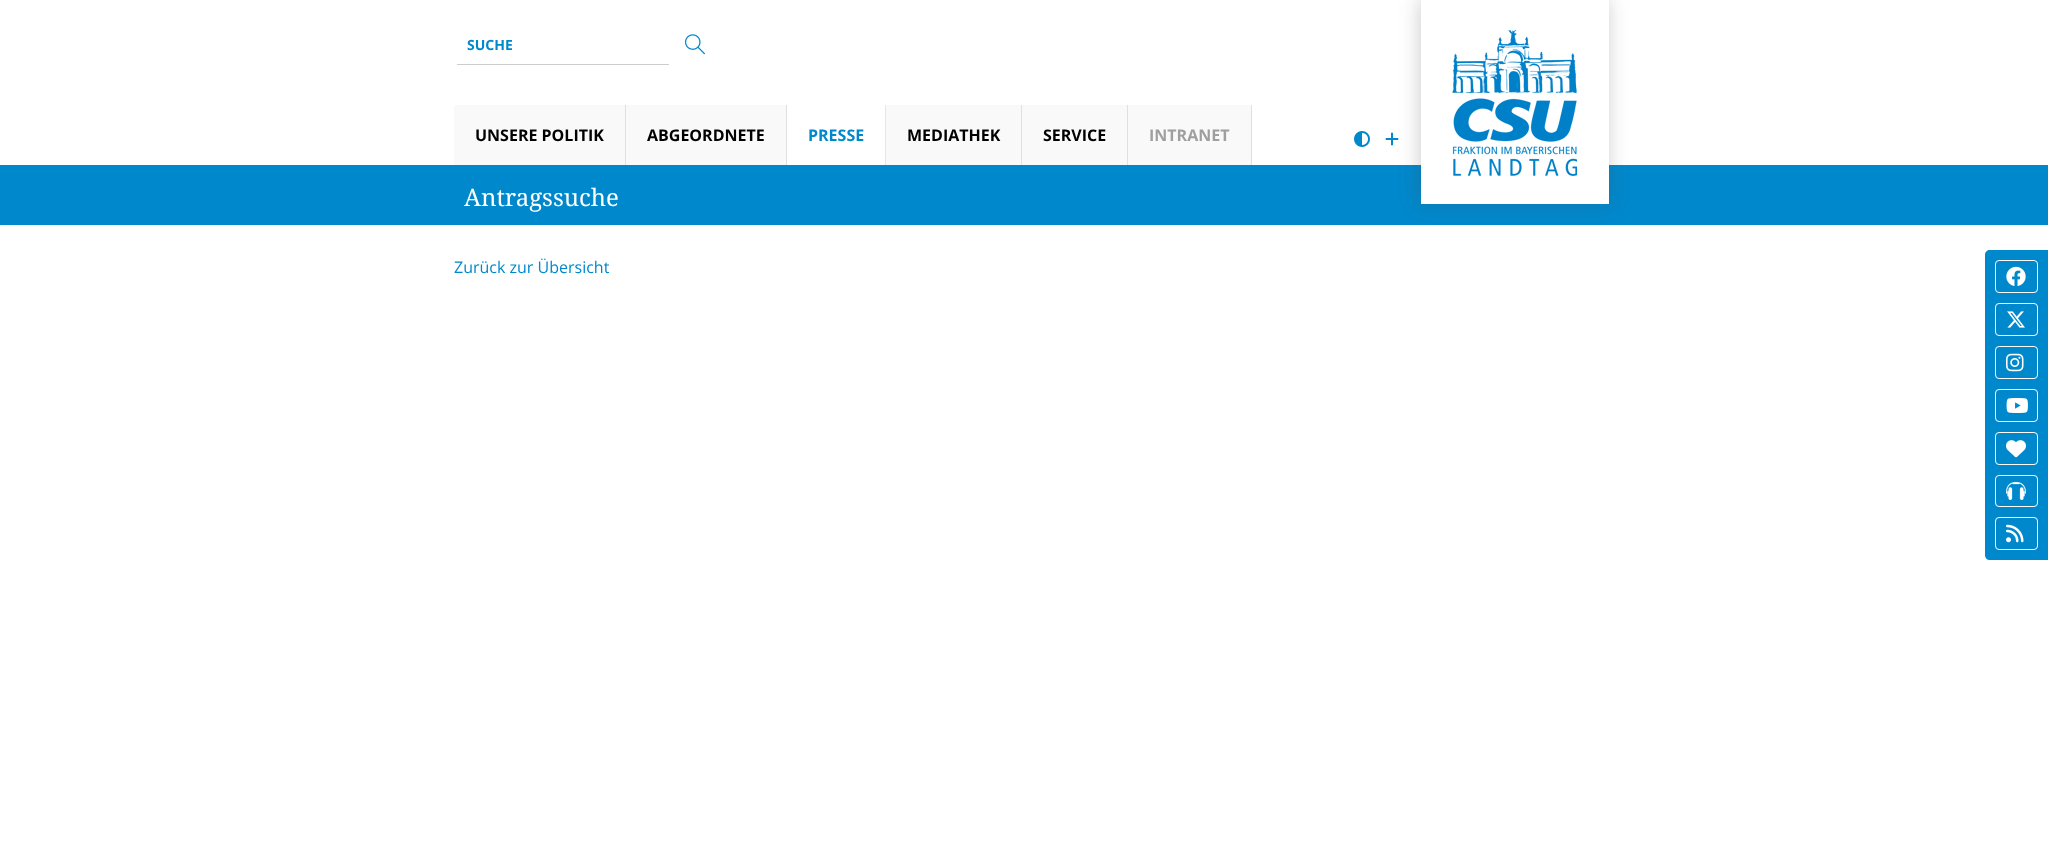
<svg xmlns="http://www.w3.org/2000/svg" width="2048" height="849">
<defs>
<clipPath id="clip1"><path d="M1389 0h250v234h-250zm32 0h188v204h-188z" clip-rule="evenodd"/></clipPath>
</defs>
<rect width="100%" height="100%" fill="#fff"/>
<rect x="457" y="64" width="212" height="1" fill="#cdcdcd"/>
<text x="467" y="50" style="font-family:Open Sans;font-size:14px;font-weight:bold;fill:#08c">SUCHE</text>
<image x="685" y="34" width="20" height="21" href="media/1.png"/>
<rect y="165" width="2048" height="60" fill="#08c"/>
<g clip-path="url(#clip1)">
<rect x="1420" y="-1" width="188" height="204" fill="#44444445" filter="blur(10px)"/>
</g>
<image x="1421" y="30" width="188" height="174" href="media/2.png"/>
<path d="M457 105h792c1.5 0 3 1.5 3 3v57h-798v-57c0-1.5 1.5-3 3-3z" fill="#f9f9f9"/>
<rect x="625" y="105" width="1" height="60" fill="#e0e0e0"/>
<text x="475" y="141" style="font-family:Open Sans;font-size:16px;font-weight:bold;fill:#000">UNSERE POLITIK</text>
<rect x="786" y="105" width="1" height="60" fill="#e0e0e0"/>
<text x="647" y="141" style="font-family:Open Sans;font-size:16px;font-weight:bold;fill:#000">ABGEORDNETE</text>
<rect x="787" y="105" width="98" height="60" fill="#fff"/>
<rect x="885" y="105" width="1" height="60" fill="#e6e6e6"/>
<text x="808" y="141" style="font-family:Open Sans;font-size:16px;font-weight:bold;fill:#08c">PRESSE</text>
<rect x="1021" y="105" width="1" height="60" fill="#e0e0e0"/>
<text x="907" y="141" style="font-family:Open Sans;font-size:16px;font-weight:bold;fill:#000">MEDIATHEK</text>
<rect x="1127" y="105" width="1" height="60" fill="#e0e0e0"/>
<text x="1043" y="141" style="font-family:Open Sans;font-size:16px;font-weight:bold;fill:#000">SERVICE</text>
<rect x="1251" y="105" width="1" height="60" fill="#0000001a"/>
<text x="1149" y="141" style="font-family:Open Sans;font-size:16px;font-weight:bold;fill:#9f9f9f">INTRANET</text>
<image x="1354" y="131" width="16" height="16" href="media/3.png"/>
<image x="1385" y="132" width="14" height="14" href="media/4.png"/>
<text x="464" y="206" style="font-family:Noto Serif;font-size:24px;fill:#fff">Antragssuche</text>
<text x="454" y="273" style="font-family:Open Sans;font-size:16px;fill:#08c">Zurück zur Übersicht</text>
<path d="M1990 250h58v310h-58c-3 0-5-2-5-5v-300c0-3 2-5 5-5z" fill="#08c"/>
<rect x="1995.5" y="260.5" width="42" height="32" rx="3.5" fill="none" stroke="#fff"/>
<image x="2006" y="266" width="20" height="20" href="media/5.png"/>
<rect x="1995.5" y="303.5" width="42" height="32" rx="3.5" fill="none" stroke="#fff"/>
<image x="2007" y="311" width="18" height="17" href="media/6.png"/>
<rect x="1995.5" y="346.5" width="42" height="32" rx="3.5" fill="none" stroke="#fff"/>
<image x="2006" y="353" width="18" height="19" href="media/7.png"/>
<rect x="1995.5" y="389.5" width="42" height="32" rx="3.5" fill="none" stroke="#fff"/>
<image x="2006" y="398" width="22" height="15" href="media/8.png"/>
<rect x="1995.5" y="432.5" width="42" height="32" rx="3.5" fill="none" stroke="#fff"/>
<image x="2006" y="440" width="20" height="18" href="media/9.png"/>
<rect x="1995.5" y="475.5" width="42" height="31" rx="3.5" fill="none" stroke="#fff"/>
<image x="2006" y="482" width="20" height="18" href="media/10.png"/>
<rect x="1995.5" y="517.5" width="42" height="32" rx="3.5" fill="none" stroke="#fff"/>
<image x="2006" y="524" width="18" height="19" href="media/11.png"/>
</svg>
